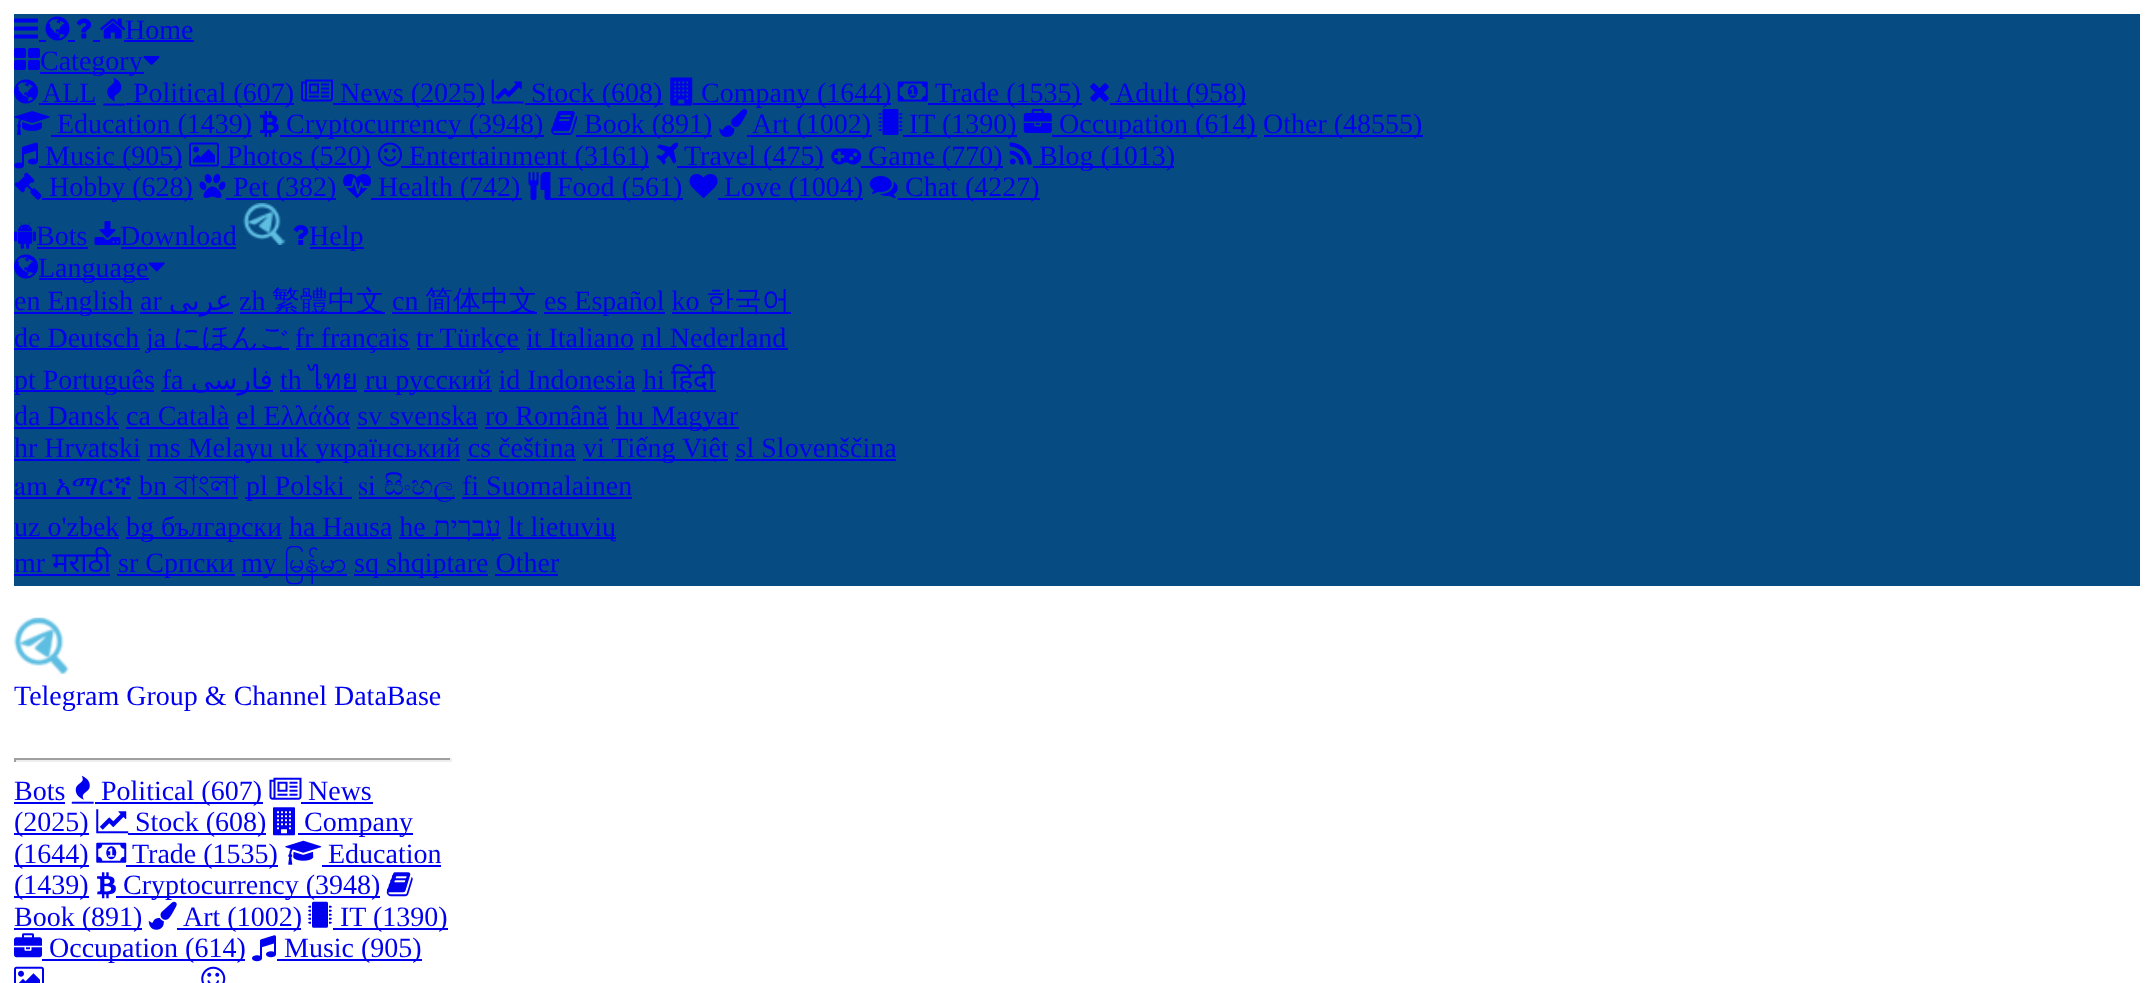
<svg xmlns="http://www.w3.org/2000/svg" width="2153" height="983">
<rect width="100%" height="100%" fill="#fff"/>
<rect x="14" y="14" width="2126" height="572" fill="#074b83"/>
<image x="14" y="18" width="24" height="21" href="media/1.png"/>
<rect x="39" y="40" width="7" height="2" fill="#00e"/>
<image x="45" y="16" width="25" height="25" href="media/2.png"/>
<rect x="68" y="40" width="7" height="2" fill="#00e"/>
<image x="76" y="18" width="16" height="21" href="media/3.png"/>
<rect x="93" y="40" width="7" height="2" fill="#00e"/>
<image x="100" y="18" width="26" height="21" href="media/4.png"/>
<text x="125" y="39" style="font-family:Liberation Serif;font-size:28px;fill:#00e">Home</text>
<rect x="124" y="40" width="70" height="2" fill="#00e"/>
<image x="14" y="48" width="26" height="22" href="media/5.png"/>
<rect x="40" y="72" width="104" height="2" fill="#00e"/>
<text x="40" y="70" style="font-family:Liberation Serif;font-size:28px;fill:#00e">Category</text>
<image x="143" y="56" width="17" height="9" href="media/6.png"/>
<image x="14" y="79" width="24" height="25" href="media/7.png"/>
<text x="42" y="102" style="font-family:Liberation Serif;font-size:28px;fill:#00e">ALL</text>
<rect x="39" y="103" width="57" height="2" fill="#00e"/>
<image x="103" y="77" width="23" height="29" href="media/8.png"/>
<rect x="126" y="103" width="168" height="2" fill="#00e"/>
<text x="133" y="102" style="font-family:Liberation Serif;font-size:28px;fill:#00e">Political (607)</text>
<image x="301" y="79" width="32" height="23" href="media/9.png"/>
<rect x="333" y="103" width="152" height="2" fill="#00e"/>
<text x="340" y="102" style="font-family:Liberation Serif;font-size:28px;fill:#00e">News (2025)</text>
<image x="491" y="79" width="33" height="25" href="media/10.png"/>
<rect x="525" y="103" width="138" height="2" fill="#00e"/>
<text x="531" y="102" style="font-family:Liberation Serif;font-size:28px;fill:#00e">Stock (608)</text>
<image x="670" y="77" width="23" height="29" href="media/11.png"/>
<rect x="693" y="103" width="198" height="2" fill="#00e"/>
<text x="701" y="102" style="font-family:Liberation Serif;font-size:28px;fill:#00e">Company (1644)</text>
<image x="897" y="81" width="31" height="21" href="media/12.png"/>
<rect x="928" y="103" width="154" height="2" fill="#00e"/>
<text x="935" y="102" style="font-family:Liberation Serif;font-size:28px;fill:#00e">Trade (1535)</text>
<image x="1090" y="83" width="19" height="19" href="media/13.png"/>
<rect x="1110" y="103" width="136" height="2" fill="#00e"/>
<text x="1115" y="102" style="font-family:Liberation Serif;font-size:28px;fill:#00e">Adult (958)</text>
<image x="14" y="111" width="36" height="24" href="media/14.png"/>
<rect x="51" y="135" width="201" height="2" fill="#00e"/>
<text x="57" y="133" style="font-family:Liberation Serif;font-size:28px;fill:#00e">Education (1439)</text>
<image x="259" y="111" width="20" height="26" href="media/15.png"/>
<rect x="280" y="135" width="264" height="2" fill="#00e"/>
<text x="286" y="133" style="font-family:Liberation Serif;font-size:28px;fill:#00e">Cryptocurrency (3948)</text>
<image x="551" y="111" width="27" height="24" href="media/16.png"/>
<rect x="576" y="135" width="136" height="2" fill="#00e"/>
<text x="584" y="133" style="font-family:Liberation Serif;font-size:28px;fill:#00e">Book (891)</text>
<image x="719" y="109" width="29" height="28" href="media/17.png"/>
<rect x="747" y="135" width="125" height="2" fill="#00e"/>
<text x="752" y="133" style="font-family:Liberation Serif;font-size:28px;fill:#00e">Art (1002)</text>
<image x="878" y="109" width="25" height="26" href="media/18.png"/>
<rect x="903" y="135" width="114" height="2" fill="#00e"/>
<text x="909" y="133" style="font-family:Liberation Serif;font-size:28px;fill:#00e">IT (1390)</text>
<image x="1023" y="109" width="29" height="24" href="media/19.png"/>
<rect x="1052" y="135" width="205" height="2" fill="#00e"/>
<text x="1059" y="133" style="font-family:Liberation Serif;font-size:28px;fill:#00e">Occupation (614)</text>
<rect x="1264" y="135" width="159" height="2" fill="#00e"/>
<text x="1263" y="133" style="font-family:Liberation Serif;font-size:28px;fill:#00e">Other (48555)</text>
<image x="14" y="142" width="24" height="27" href="media/20.png"/>
<rect x="39" y="166" width="143" height="2" fill="#00e"/>
<text x="45" y="165" style="font-family:Liberation Serif;font-size:28px;fill:#00e">Music (905)</text>
<image x="189" y="142" width="30" height="25" href="media/21.png"/>
<rect x="221" y="166" width="150" height="2" fill="#00e"/>
<text x="227" y="165" style="font-family:Liberation Serif;font-size:28px;fill:#00e">Photos (520)</text>
<image x="378" y="142" width="24" height="25" href="media/22.png"/>
<rect x="401" y="166" width="248" height="2" fill="#00e"/>
<text x="409" y="165" style="font-family:Liberation Serif;font-size:28px;fill:#00e">Entertainment (3161)</text>
<image x="656" y="142" width="23" height="23" href="media/23.png"/>
<rect x="677" y="166" width="147" height="2" fill="#00e"/>
<text x="684" y="165" style="font-family:Liberation Serif;font-size:28px;fill:#00e">Travel (475)</text>
<image x="831" y="148" width="31" height="17" href="media/24.png"/>
<rect x="861" y="166" width="142" height="2" fill="#00e"/>
<text x="868" y="165" style="font-family:Liberation Serif;font-size:28px;fill:#00e">Game (770)</text>
<image x="1009" y="142" width="23" height="23" href="media/25.png"/>
<rect x="1033" y="166" width="141" height="2" fill="#00e"/>
<text x="1039" y="165" style="font-family:Liberation Serif;font-size:28px;fill:#00e">Blog (1013)</text>
<image x="14" y="172" width="28" height="28" href="media/26.png"/>
<rect x="42" y="198" width="151" height="2" fill="#00e"/>
<text x="49" y="196" style="font-family:Liberation Serif;font-size:28px;fill:#00e">Hobby (628)</text>
<image x="199" y="174" width="27" height="24" href="media/27.png"/>
<rect x="226" y="198" width="110" height="2" fill="#00e"/>
<text x="233" y="196" style="font-family:Liberation Serif;font-size:28px;fill:#00e">Pet (382)</text>
<image x="343" y="174" width="28" height="24" href="media/28.png"/>
<rect x="371" y="198" width="151" height="2" fill="#00e"/>
<text x="378" y="196" style="font-family:Liberation Serif;font-size:28px;fill:#00e">Health (742)</text>
<image x="528" y="172" width="23" height="28" href="media/29.png"/>
<rect x="550" y="198" width="133" height="2" fill="#00e"/>
<text x="557" y="196" style="font-family:Liberation Serif;font-size:28px;fill:#00e">Food (561)</text>
<image x="689" y="174" width="29" height="24" href="media/30.png"/>
<rect x="718" y="198" width="145" height="2" fill="#00e"/>
<text x="724" y="196" style="font-family:Liberation Serif;font-size:28px;fill:#00e">Love (1004)</text>
<image x="869" y="176" width="29" height="22" href="media/31.png"/>
<rect x="898" y="198" width="142" height="2" fill="#00e"/>
<text x="905" y="196" style="font-family:Liberation Serif;font-size:28px;fill:#00e">Chat (4227)</text>
<image x="14" y="223" width="22" height="26" href="media/32.png"/>
<text x="36" y="245" style="font-family:Liberation Serif;font-size:28px;fill:#00e">Bots</text>
<rect x="37" y="247" width="51" height="2" fill="#00e"/>
<image x="94" y="221" width="27" height="24" href="media/33.png"/>
<text x="120" y="245" style="font-family:Liberation Serif;font-size:28px;fill:#00e">Download</text>
<rect x="121" y="247" width="115" height="2" fill="#00e"/>
<image x="243" y="203" width="43" height="42" href="media/34.png"/>
<image x="293" y="225" width="16" height="20" href="media/35.png"/>
<rect x="310" y="247" width="54" height="2" fill="#00e"/>
<text x="309" y="245" style="font-family:Liberation Serif;font-size:28px;fill:#00e">Help</text>
<image x="14" y="254" width="24" height="25" href="media/7.png"/>
<rect x="39" y="278" width="110" height="2" fill="#00e"/>
<text x="38" y="277" style="font-family:Liberation Serif;font-size:28px;fill:#00e">Language</text>
<image x="148" y="262" width="17" height="10" href="media/36.png"/>
<rect x="14" y="312" width="119" height="2" fill="#00e"/>
<text x="14" y="310" style="font-family:Liberation Serif;font-size:28px;fill:#00e">en English ar</text>
<rect x="140" y="312" width="93" height="2" fill="#00e"/>
<text x="232" y="310" style="font-family:DejaVu Sans;font-size:28px;direction:rtl;fill:#00e">عربى</text>
<text x="239" y="310" style="font-family:Liberation Serif;font-size:28px;fill:#00e">zh</text>
<rect x="240" y="312" width="145" height="2" fill="#00e"/>
<text x="272" y="310" style="font-family:WenQuanYi Zen Hei;font-size:28px;font-weight:500;fill:#00e">繁體中文</text>
<text x="392" y="310" style="font-family:Liberation Serif;font-size:28px;fill:#00e">cn</text>
<rect x="392" y="312" width="145" height="2" fill="#00e"/>
<text x="425" y="310" style="font-family:WenQuanYi Zen Hei;font-size:28px;font-weight:500;fill:#00e">简体中文</text>
<rect x="544" y="312" width="121" height="2" fill="#00e"/>
<text x="544" y="310" style="font-family:Liberation Serif;font-size:28px;fill:#00e">es Español ko</text>
<rect x="672" y="312" width="119" height="2" fill="#00e"/>
<text x="706" y="310" style="font-family:WenQuanYi Zen Hei;font-size:28px;font-weight:500;fill:#00e">한국어</text>
<text x="14" y="347" style="font-family:Liberation Serif;font-size:28px;fill:#00e">de Deutsch</text>
<rect x="14" y="348" width="126" height="2" fill="#00e"/>
<rect x="147" y="348" width="142" height="2" fill="#00e"/>
<text x="146" y="347" style="font-family:Liberation Serif;font-size:28px;fill:#00e">ja</text>
<text x="173" y="347" style="font-family:WenQuanYi Zen Hei;font-size:28px;font-weight:500;fill:#00e">にほんご</text>
<rect x="296" y="348" width="114" height="2" fill="#00e"/>
<text x="295" y="347" style="font-family:Liberation Serif;font-size:28px;fill:#00e">fr français</text>
<rect x="417" y="348" width="103" height="2" fill="#00e"/>
<text x="416" y="347" style="font-family:Liberation Serif;font-size:28px;fill:#00e">tr Türkçe it Italiano nl Nederland</text>
<rect x="527" y="348" width="107" height="2" fill="#00e"/>
<rect x="641" y="348" width="147" height="2" fill="#00e"/>
<rect x="14" y="390" width="140" height="2" fill="#00e"/>
<text x="14" y="389" style="font-family:Liberation Serif;font-size:28px;fill:#00e">pt Português fa</text>
<rect x="161" y="390" width="112" height="2" fill="#00e"/>
<text x="273" y="389" style="font-family:DejaVu Sans;font-size:28px;direction:rtl;fill:#00e">فارسی</text>
<text x="280" y="389" style="font-family:Liberation Serif;font-size:28px;fill:#00e">th</text>
<rect x="280" y="390" width="77" height="2" fill="#00e"/>
<text x="309" y="389" style="font-family:Loma;font-size:28px;fill:#00e">ไทย</text>
<rect x="364" y="390" width="128" height="2" fill="#00e"/>
<text x="365" y="389" style="font-family:Liberation Serif;font-size:28px;fill:#00e">ru русский id Indonesia hi</text>
<rect x="642" y="390" width="74" height="2" fill="#00e"/>
<text x="671" y="389" style="font-family:Noto Sans;font-size:28px;fill:#00e">हिंदी</text>
<rect x="499" y="390" width="136" height="2" fill="#00e"/>
<text x="14" y="425" style="font-family:Liberation Serif;font-size:28px;fill:#00e">da Dansk ca Català el Ελλάδα sv svenska ro Română</text>
<rect x="14" y="427" width="105" height="2" fill="#00e"/>
<rect x="616" y="427" width="123" height="2" fill="#00e"/>
<text x="616" y="425" style="font-family:Liberation Serif;font-size:28px;fill:#00e">hu Magyar</text>
<rect x="126" y="427" width="103" height="2" fill="#00e"/>
<rect x="236" y="427" width="114" height="2" fill="#00e"/>
<rect x="357" y="427" width="121" height="2" fill="#00e"/>
<rect x="485" y="427" width="124" height="2" fill="#00e"/>
<text x="14" y="457" style="font-family:Liberation Serif;font-size:28px;fill:#00e">hr Hrvatski</text>
<rect x="14" y="459" width="126" height="2" fill="#00e"/>
<rect x="147" y="459" width="313" height="2" fill="#00e"/>
<text x="148" y="457" style="font-family:Liberation Serif;font-size:28px;fill:#00e">ms Melayu uk український cs čeština</text>
<rect x="583" y="459" width="145" height="2" fill="#00e"/>
<text x="583" y="457" style="font-family:Liberation Serif;font-size:28px;fill:#00e">vi Tiếng Việt sl Slovenščina</text>
<rect x="467" y="459" width="109" height="2" fill="#00e"/>
<rect x="735" y="459" width="161" height="2" fill="#00e"/>
<text x="14" y="495" style="font-family:FreeSerif;font-size:28px;fill:#00e">am አማርኛ</text>
<rect x="14" y="497" width="117" height="2" fill="#00e"/>
<text x="139" y="495" style="font-family:Liberation Serif;font-size:28px;fill:#00e">bn</text>
<rect x="138" y="497" width="100" height="2" fill="#00e"/>
<text x="174" y="495" style="font-family:Lohit Bengali;font-size:28px;fill:#00e">বাংলা</text>
<rect x="245" y="497" width="107" height="2" fill="#00e"/>
<text x="246" y="495" style="font-family:Liberation Serif;font-size:28px;fill:#00e">pl Polski </text>
<rect x="359" y="497" width="96" height="2" fill="#00e"/>
<text x="358" y="495" word-spacing="1" style="font-family:FreeSerif;font-size:28px;fill:#00e">si සිංහල</text>
<text x="462" y="495" style="font-family:Liberation Serif;font-size:28px;fill:#00e">fi Suomalainen</text>
<rect x="462" y="497" width="170" height="2" fill="#00e"/>
<text x="14" y="536" style="font-family:Liberation Serif;font-size:28px;fill:#00e">uz o'zbek</text>
<rect x="14" y="537" width="105" height="2" fill="#00e"/>
<rect x="126" y="537" width="156" height="2" fill="#00e"/>
<text x="126" y="536" style="font-family:Liberation Serif;font-size:28px;fill:#00e">bg български ha Hausa he</text>
<rect x="399" y="537" width="102" height="2" fill="#00e"/>
<text x="501" y="536" style="font-family:Liberation Serif;font-size:28px;direction:rtl;fill:#00e">עִברִית</text>
<rect x="508" y="537" width="108" height="2" fill="#00e"/>
<text x="508" y="536" style="font-family:Liberation Serif;font-size:28px;fill:#00e">lt lietuvių</text>
<rect x="289" y="537" width="103" height="2" fill="#00e"/>
<text x="14" y="572" style="font-family:Liberation Serif;font-size:28px;fill:#00e">mr</text>
<rect x="14" y="574" width="96" height="2" fill="#00e"/>
<text x="52" y="572" style="font-family:Noto Sans;font-size:28px;fill:#00e">मराठी</text>
<rect x="117" y="574" width="118" height="2" fill="#00e"/>
<text x="118" y="572" style="font-family:Liberation Serif;font-size:28px;fill:#00e">sr Српски</text>
<rect x="242" y="574" width="105" height="2" fill="#00e"/>
<text x="241" y="572" style="font-family:Liberation Serif;font-size:28px;fill:#00e">my</text>
<text x="284" y="572" style="font-family:Padauk;font-size:28px;fill:#00e">မြန်မာ</text>
<rect x="354" y="574" width="134" height="2" fill="#00e"/>
<text x="354" y="572" style="font-family:Liberation Serif;font-size:28px;fill:#00e">sq shqiptare Other</text>
<rect x="495" y="574" width="63" height="2" fill="#00e"/>
<image x="14" y="617" width="55" height="57" href="media/37.png"/>
<text x="14" y="705" style="font-family:Liberation Serif;font-size:28px;fill:#00e">Telegram Group &amp; Channel DataBase</text>
<rect x="14" y="758" width="438" height="2" fill="#9f9f9f"/>
<rect x="450" y="758" width="2" height="4" fill="#eee"/>
<rect x="14" y="760" width="438" height="2" fill="#eee"/>
<rect x="14" y="758" width="2" height="4" fill="#9f9f9f"/>
<text x="14" y="800" style="font-family:Liberation Serif;font-size:28px;fill:#00e">Bots</text>
<rect x="14" y="802" width="51" height="2" fill="#00e"/>
<image x="71" y="775" width="23" height="29" href="media/38.png"/>
<rect x="95" y="802" width="168" height="2" fill="#00e"/>
<text x="101" y="800" style="font-family:Liberation Serif;font-size:28px;fill:#00e">Political (607)</text>
<image x="269" y="777" width="33" height="23" href="media/39.png"/>
<text x="308" y="800" style="font-family:Liberation Serif;font-size:28px;fill:#00e">News</text>
<rect x="301" y="802" width="72" height="2" fill="#00e"/>
<rect x="14" y="833" width="75" height="2" fill="#00e"/>
<text x="14" y="831" style="font-family:Liberation Serif;font-size:28px;fill:#00e">(2025)</text>
<image x="96" y="809" width="33" height="25" href="media/40.png"/>
<rect x="128" y="833" width="138" height="2" fill="#00e"/>
<text x="135" y="831" style="font-family:Liberation Serif;font-size:28px;fill:#00e">Stock (608)</text>
<image x="273" y="807" width="22" height="29" href="media/41.png"/>
<rect x="298" y="833" width="115" height="2" fill="#00e"/>
<text x="304" y="831" style="font-family:Liberation Serif;font-size:28px;fill:#00e">Company</text>
<rect x="14" y="865" width="75" height="2" fill="#00e"/>
<text x="14" y="863" style="font-family:Liberation Serif;font-size:28px;fill:#00e">(1644)</text>
<image x="285" y="840" width="37" height="25" href="media/42.png"/>
<text x="328" y="863" style="font-family:Liberation Serif;font-size:28px;fill:#00e">Education</text>
<rect x="322" y="865" width="119" height="2" fill="#00e"/>
<rect x="14" y="896" width="75" height="2" fill="#00e"/>
<text x="14" y="894" style="font-family:Liberation Serif;font-size:28px;fill:#00e">(1439)</text>
<image x="96" y="842" width="31" height="21" href="media/43.png"/>
<rect x="126" y="865" width="152" height="2" fill="#00e"/>
<text x="132" y="863" style="font-family:Liberation Serif;font-size:28px;fill:#00e">Trade (1535)</text>
<image x="97" y="872" width="19" height="27" href="media/44.png"/>
<rect x="116" y="896" width="264" height="2" fill="#00e"/>
<text x="123" y="894" style="font-family:Liberation Serif;font-size:28px;fill:#00e">Cryptocurrency (3948)</text>
<image x="386" y="872" width="27" height="25" href="media/45.png"/>
<rect x="14" y="928" width="128" height="2" fill="#00e"/>
<text x="14" y="926" style="font-family:Liberation Serif;font-size:28px;fill:#00e">Book (891)</text>
<image x="148" y="901" width="29" height="29" href="media/46.png"/>
<rect x="177" y="928" width="124" height="2" fill="#00e"/>
<text x="183" y="926" style="font-family:Liberation Serif;font-size:28px;fill:#00e">Art (1002)</text>
<image x="308" y="901" width="24" height="27" href="media/47.png"/>
<rect x="333" y="928" width="115" height="2" fill="#00e"/>
<text x="340" y="926" style="font-family:Liberation Serif;font-size:28px;fill:#00e">IT (1390)</text>
<image x="14" y="933" width="28" height="25" href="media/48.png"/>
<rect x="42" y="959" width="203" height="2" fill="#00e"/>
<text x="49" y="957" style="font-family:Liberation Serif;font-size:28px;fill:#00e">Occupation (614)</text>
<image x="252" y="935" width="24" height="27" href="media/49.png"/>
<rect x="277" y="959" width="145" height="2" fill="#00e"/>
<text x="284" y="957" style="font-family:Liberation Serif;font-size:28px;fill:#00e">Music (905)</text>
<image x="14" y="966" width="30" height="17" href="media/50.png"/>
<image x="201" y="966" width="25" height="17" href="media/51.png"/>
</svg>
